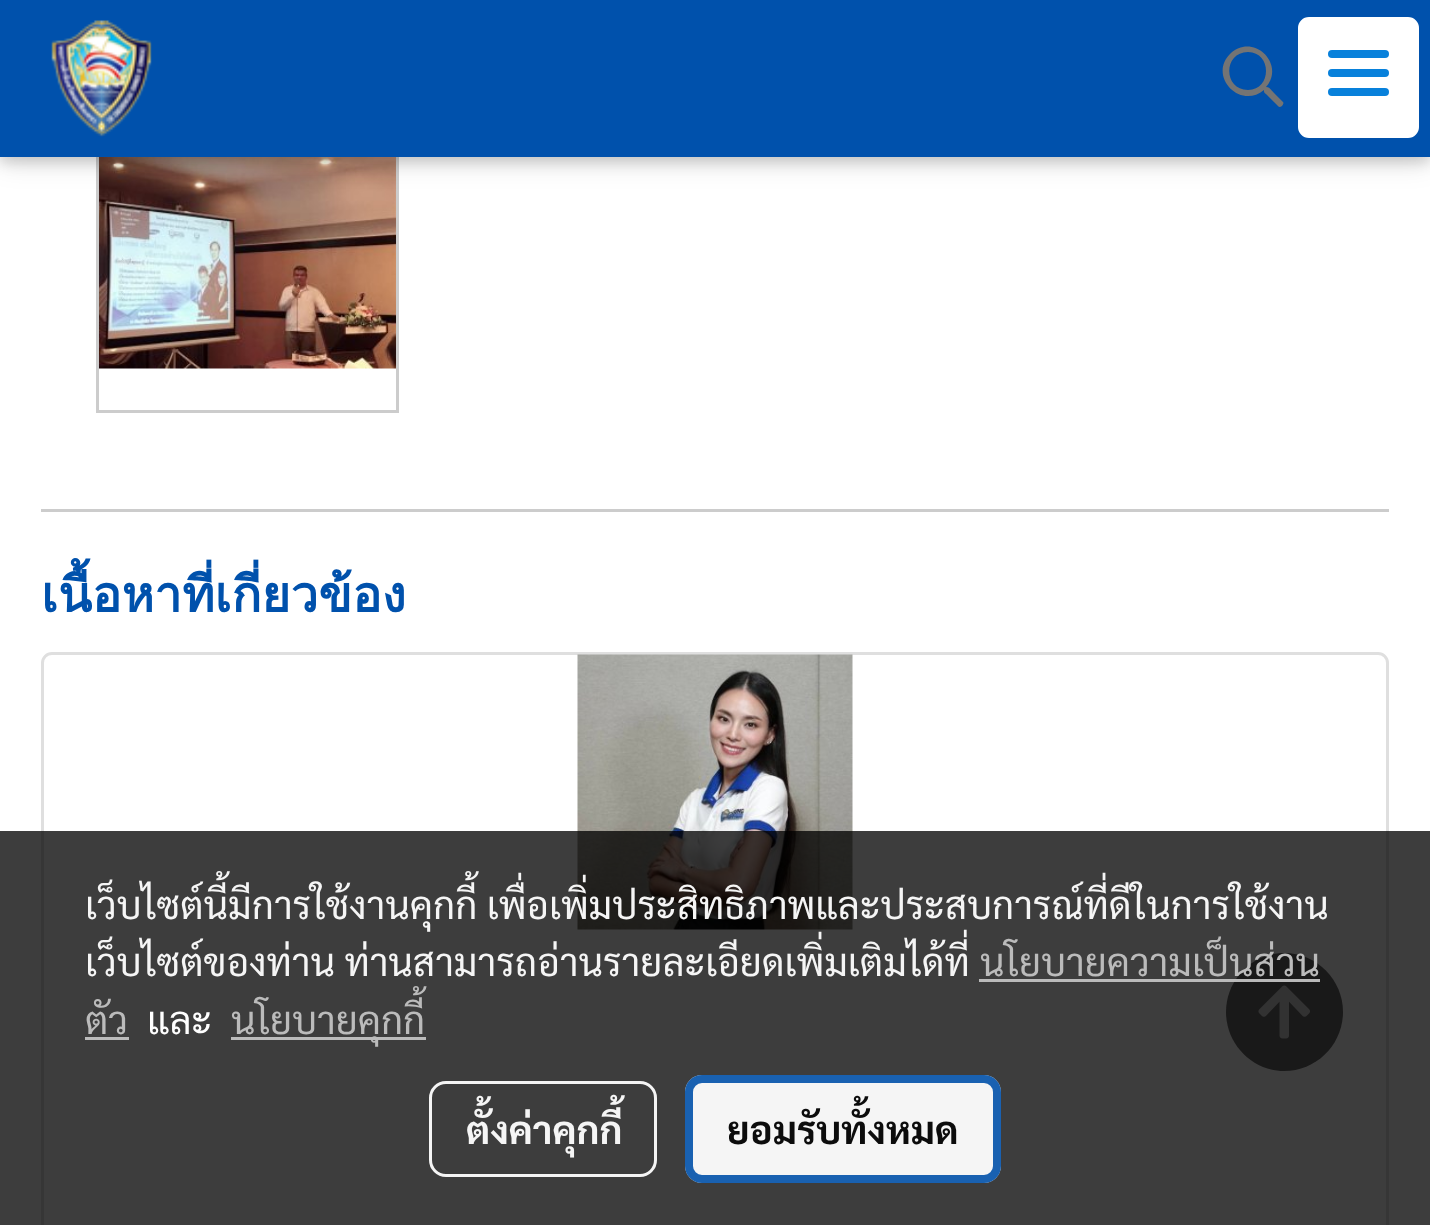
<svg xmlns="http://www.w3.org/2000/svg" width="1430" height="1225">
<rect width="100%" height="100%" fill="#fff"/>
<rect x="97.5" y="111.5" width="300" height="300" fill="none" stroke="#ccc" stroke-width="3"/>
<image x="99" y="157" width="297" height="212" href="media/2.png"/>
<rect y="6" width="1430" height="156" fill="#0000001f" filter="blur(14px)"/>
<rect y="6" width="1430" height="156" fill="#00000029" filter="blur(7px)"/>
<rect width="1430" height="157" fill="#0051ac"/>
<image x="51" y="20" width="101" height="117" href="media/1.png"/>
<path d="M1283 102l-9-9c-4-4-4-6-8-6c20-23-13-55-36-33c-22 22 10 56 34 36c0 3 0 2 3 5l9 9c3 3 3 4 6 2c1-1 2-3 1-4zm-35-12c-25 0-25-38 0-38c24 0 24 38 0 38z" fill="#747474"/>
<rect x="1299.5" y="18.5" width="118" height="118" rx="9.5" fill="#fff" stroke="#fff" stroke-width="3"/>
<rect x="1328" y="69" width="61" height="8" rx="4" fill="#0881db"/>
<rect x="1328" y="50" width="61" height="8" rx="4" fill="#0881db"/>
<rect x="1328" y="88" width="61" height="8" rx="4" fill="#0881db"/>
<rect x="41" y="509" width="1348" height="3" fill="#ccc"/>
<text x="41" y="612" style="font-family:Loma;font-size:49.5px;font-weight:bold;fill:#0051ac">เนื้อหาที่เกี่ยวข้อง</text>
<rect x="42.5" y="653.5" width="1345" height="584" rx="9.5" fill="none" stroke="#dfdfdf" stroke-width="3"/>
<image x="577" y="654" width="276" height="276" href="media/3.png"/>
<path d="M1284 953c-32 0-58 27-58 59c0 32 26 59 58 59c33 0 59-27 59-59c0-32-26-59-59-59z" fill="#2b2a2ab3"/>
<image x="1258" y="985" width="52" height="54" href="media/4.png"/>
<rect y="831" width="1430" height="394" fill="#000000c2"/>
<text x="85" y="919" style="font-family:Sarabun;font-size:38.5px;fill:#f5f5f5">เว็บไซต์นี้มีการใช้งานคุกกี้ เพื่อเพิ่มประสิทธิภาพและประสบการณ์ที่ดีในการใช้งาน</text>
<text x="85" y="976" style="font-family:Sarabun;font-size:38.5px;fill:#f5f5f5">เว็บไซต์ของท่าน ท่านสามารถอ่านรายละเอียดเพิ่มเติมได้ที่</text>
<text x="980" y="976" style="font-family:Sarabun;font-size:38.5px;fill:#bbb">นโยบายความเป็นส่วน</text>
<rect x="979" y="979" width="341" height="3" fill="#c2c2c2f2"/>
<text x="85" y="1034" style="font-family:Sarabun;font-size:38.5px;fill:#bbb">ตัว</text>
<rect x="85" y="1037" width="44" height="3" fill="#c2c2c2f2"/>
<text x="147" y="1034" style="font-family:Sarabun;font-size:38.5px;fill:#fff">และ</text>
<rect x="231" y="1037" width="195" height="3" fill="#c2c2c2f2"/>
<text x="231" y="1034" style="font-family:Sarabun;font-size:38.5px;fill:#bbb">นโยบายคุกกี้</text>
<rect x="430.5" y="1082.5" width="225" height="93" rx="15.5" fill="none" stroke="#fffffff2" stroke-width="3"/>
<text x="466" y="1144" style="font-family:Sarabun;font-size:38.5px;font-weight:bold;fill:#f5f5f5">ตั้งค่าคุกกี้</text>
<rect x="685" y="1075" width="316" height="108" rx="17" fill="#fffffff2"/>
<rect x="689" y="1079" width="308" height="100" rx="13" fill="none" stroke="#0d59adf2" stroke-width="8"/>
<text x="727" y="1144" style="font-family:Sarabun;font-size:38.5px;font-weight:bold;fill:#0c0c0c">ยอมรับทั้งหมด</text>
</svg>
